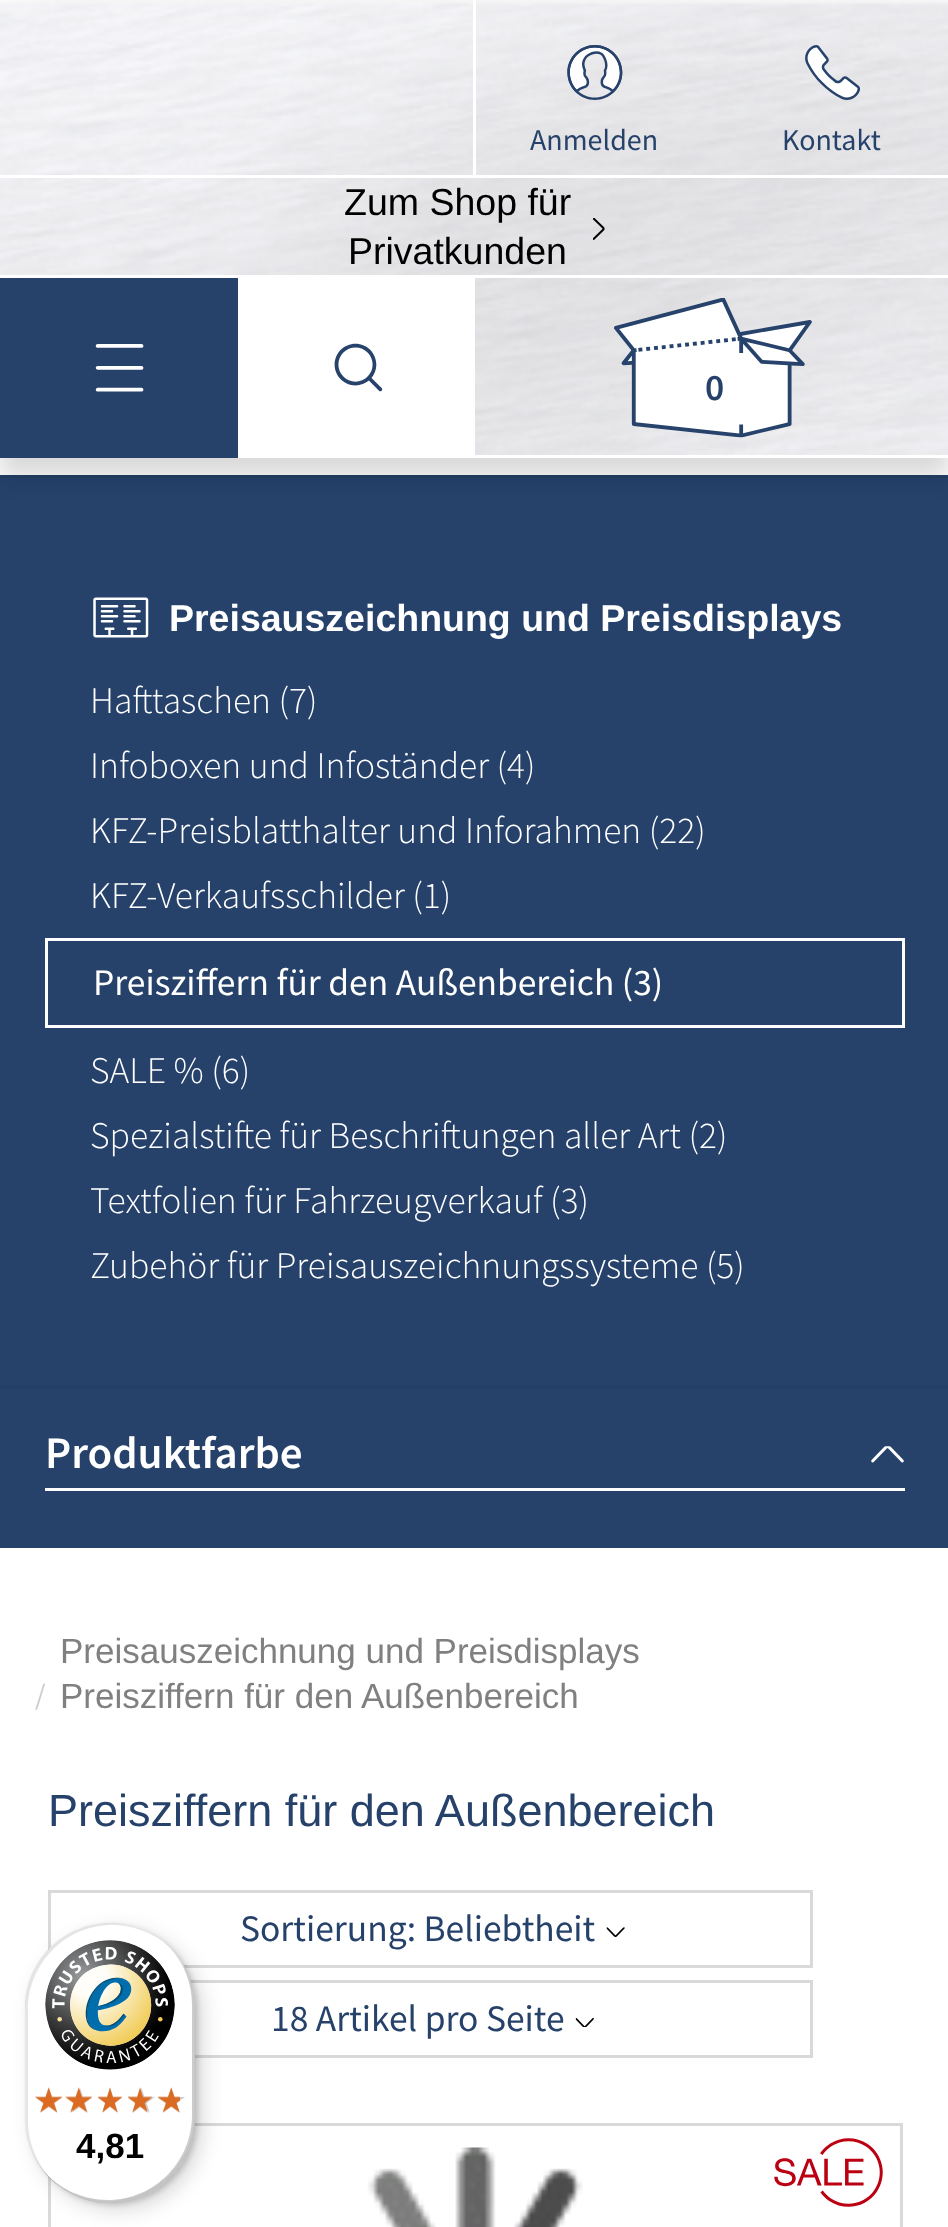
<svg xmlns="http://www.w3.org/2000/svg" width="948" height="2227">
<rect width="100%" height="100%" fill="#fff"/>
<rect y="478" width="948" height="907" fill="#26426b"/>
<rect y="475" width="948" height="3" fill="#243f66"/>
<rect y="20" width="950" height="458" fill="#00000026" filter="blur(12.5px)"/>
<image x="0" y="0" width="948" height="455" href="media/1.png"/>
<rect x="475" y="175" width="473" height="3" fill="#fff"/>
<rect x="473" width="3" height="178" fill="#fff"/>
<rect y="175" width="475" height="3" fill="#fff"/>
<image x="567" y="45" width="56" height="55" href="media/2.png"/>
<text x="530" y="150" style="font-family:Source Sans Pro;font-size:30px;fill:#26426b">Anmelden</text>
<image x="805" y="45" width="55" height="55" href="media/3.png"/>
<text x="782" y="150" style="font-family:Source Sans Pro;font-size:30px;fill:#26426b">Kontakt</text>
<rect y="275" width="948" height="3" fill="#fff"/>
<text x="344" y="215" style="font-family:Liberation Sans;font-size:37.5px;fill:#000">Zum Shop für</text>
<text x="348" y="264" style="font-family:Liberation Sans;font-size:37.5px;fill:#000">Privatkunden</text>
<image x="593" y="218" width="12" height="22" href="media/4.png"/>
<rect y="278" width="238" height="180" fill="#26426b"/>
<image x="95" y="344" width="49" height="48" href="media/5.png"/>
<rect x="238" y="278" width="237" height="180" fill="#fff"/>
<image x="334" y="343" width="49" height="49" href="media/6.png"/>
<rect x="475" y="455" width="473" height="3" fill="#fff"/>
<image x="614" y="298" width="198" height="140" href="media/7.png"/>
<text x="705" y="400" style="font-family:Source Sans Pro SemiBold;font-size:37.5px;font-weight:600;fill:#26426b">0</text>
<image x="93" y="597" width="56" height="41" href="media/8.png"/>
<text x="169" y="631" style="font-family:Liberation Sans;font-size:37.5px;font-weight:bold;fill:#fff">Preisauszeichnung und Preisdisplays</text>
<text x="90" y="713" style="font-family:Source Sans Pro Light;font-size:37.5px;font-weight:300;fill:#fff">Hafttaschen (7)</text>
<text x="90" y="778" style="font-family:Source Sans Pro Light;font-size:37.5px;font-weight:300;fill:#fff">Infoboxen und Infoständer (4)</text>
<text x="90" y="843" style="font-family:Source Sans Pro Light;font-size:37.5px;font-weight:300;fill:#fff">KFZ-Preisblatthalter und Inforahmen (22)</text>
<text x="90" y="908" style="font-family:Source Sans Pro Light;font-size:37.5px;font-weight:300;fill:#fff">KFZ-Verkaufsschilder (1)</text>
<rect x="46.5" y="939.5" width="857" height="87" fill="none" stroke="#fff" stroke-width="3"/>
<text x="93" y="995" style="font-family:Source Sans Pro;font-size:37.5px;fill:#fff">Preisziffern für den Außenbereich (3)</text>
<text x="90" y="1083" style="font-family:Source Sans Pro Light;font-size:37.5px;font-weight:300;fill:#fff">SALE % (6)</text>
<text x="90" y="1148" style="font-family:Source Sans Pro Light;font-size:37.5px;font-weight:300;fill:#fff">Spezialstifte für Beschriftungen aller Art (2)</text>
<text x="90" y="1213" style="font-family:Source Sans Pro Light;font-size:37.5px;font-weight:300;fill:#fff">Textfolien für Fahrzeugverkauf (3)</text>
<text x="90" y="1278" style="font-family:Source Sans Pro Light;font-size:37.5px;font-weight:300;fill:#fff">Zubehör für Preisauszeichnungssysteme (5)</text>
<rect y="1388" width="948" height="160" fill="#26426b"/>
<rect y="1385" width="948" height="3" fill="#243f66"/>
<rect x="45" y="1488" width="860" height="3" fill="#fff"/>
<text x="45" y="1468" style="font-family:Source Sans Pro SemiBold;font-size:45px;font-weight:600;fill:#fff">Produktfarbe</text>
<image x="871" y="1446" width="33" height="17" href="media/9.png"/>
<text x="60" y="1663" style="font-family:Liberation Sans;font-size:35px;fill:#808080">Preisauszeichnung und Preisdisplays</text>
<text x="35" y="1705" style="font-family:Source Sans Pro;font-size:30px;fill:#ccc">/</text>
<text x="60" y="1708" style="font-family:Liberation Sans;font-size:35px;fill:#808080">Preisziffern für den Außenbereich</text>
<text x="48" y="1826" style="font-family:Liberation Sans;font-size:45px;fill:#26426b">Preisziffern für den Außenbereich</text>
<rect x="49.5" y="1891.5" width="762" height="75" fill="none" stroke="#d9d9d9" stroke-width="3"/>
<text x="240" y="1941" style="font-family:Source Sans Pro;font-size:37.5px;fill:#26426b">Sortierung: Beliebtheit</text>
<image x="606" y="1927" width="19" height="10" href="media/10.png"/>
<rect x="49.5" y="1981.5" width="762" height="75" fill="none" stroke="#d9d9d9" stroke-width="3"/>
<text x="271" y="2031" style="font-family:Source Sans Pro;font-size:37.5px;fill:#26426b">18 Artikel pro Seite</text>
<image x="575" y="2018" width="19" height="9" href="media/11.png"/>
<rect x="194" y="2123" width="709" height="3" fill="#d9d9d9"/>
<rect x="900" y="2125" width="3" height="102" fill="#d9d9d9"/>
<rect x="48" y="2176" width="3" height="51" fill="#d9d9d9"/>
<image x="367" y="2147" width="216" height="80" href="media/12.png"/>
<image x="774" y="2138" width="109" height="69" href="media/13.png"/>
<rect x="33" y="1930" width="170" height="280" rx="85" fill="#00000026" filter="blur(10px)"/>
<rect x="28" y="1925" width="170" height="280" rx="85" fill="#00000026" filter="blur(2.5px)"/>
<rect x="25" y="1923" width="170" height="280" rx="85" fill="#fff"/>
<path d="M112 1925c20 0 38 7 53 18c-15-12-34-20-55-20c-47 0-85 38-85 85v110c0 29 14 54 36 70c-20-16-33-40-33-68v-110c0-47 38-85 84-85z" fill="#0000001a"/>
<path d="M44 2172c16 19 40 31 66 31c47 0 85-38 85-85v-110c0-23-10-45-25-60c14 15 22 35 22 57v110c0 47-38 85-84 85c-25 0-48-11-64-28z" fill="#00000033"/>
<path d="M34 2156c14 28 43 47 76 47c47 0 85-38 85-85v-110c0-17-5-33-13-46c7 13 12 28 12 44v110c0 47-39 85-85 85c-33 0-61-18-75-45z" fill="#32323233"/>
<path d="M34 2156c14 28 43 47 76 47c47 0 85-38 85-85v-110c0-14-3-27-9-38c5 11 8 23 8 36v110c0 47-38 85-85 85c-33 0-61-18-75-45z" fill="#ffffff4d"/>
<image x="45" y="1940" width="130" height="130" href="media/14.png"/>
<image x="35" y="2088" width="27" height="24" href="media/15.png"/>
<image x="68" y="2088" width="24" height="25" href="media/16.png"/>
<image x="98" y="2088" width="24" height="24" href="media/17.png"/>
<image x="128" y="2087" width="27" height="26" href="media/18.png"/>
<image x="158" y="2088" width="27" height="24" href="media/19.png"/>
<image x="35" y="2087" width="27" height="26" href="media/20.png"/>
<image x="65" y="2087" width="27" height="26" href="media/21.png"/>
<image x="98" y="2087" width="24" height="26" href="media/22.png"/>
<image x="128" y="2087" width="24" height="26" href="media/23.png"/>
<image x="158" y="2087" width="22" height="26" href="media/24.png"/>
<text x="76" y="2158" style="font-family:Liberation Sans;font-size:35px;font-weight:bold;fill:#000">4,81</text>
</svg>
